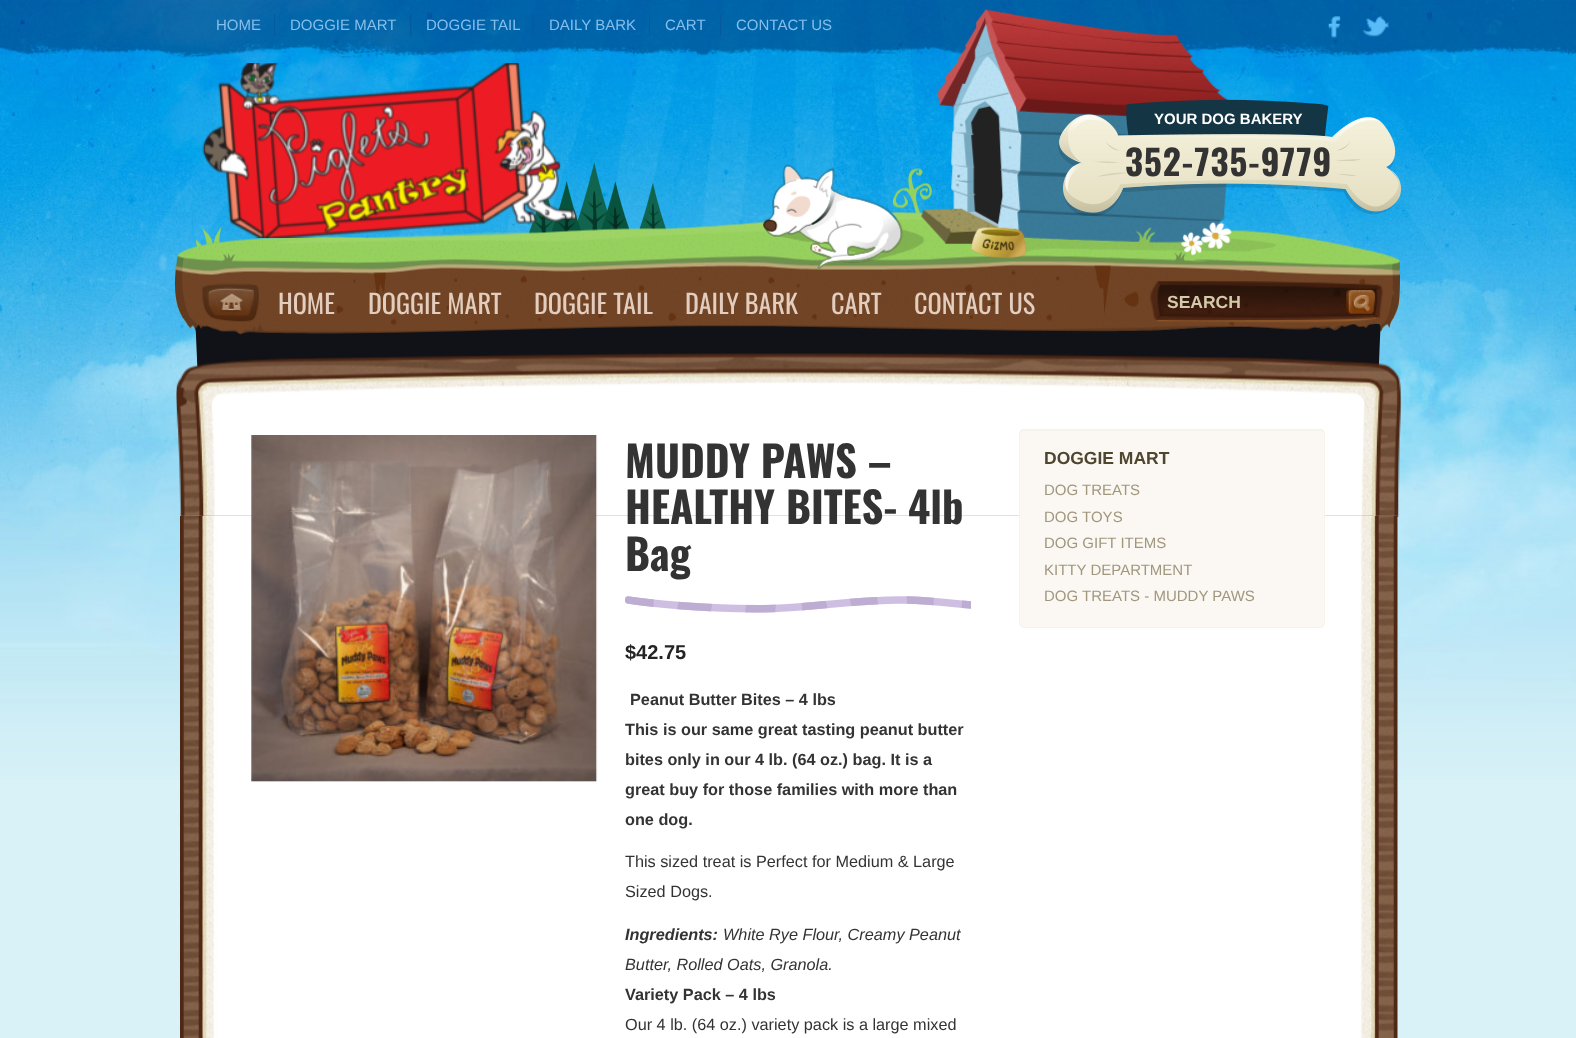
<svg xmlns="http://www.w3.org/2000/svg" width="1576" height="1038">
<rect width="100%" height="100%" fill="#d9f2f7"/>
<image x="0" y="0" width="1576" height="780" href="media/1.png"/>
<image x="0" y="0" width="1576" height="58" href="media/2.png"/>
<rect x="274" y="14" width="1" height="22" fill="#06599f"/>
<text x="216" y="30" style="font-family:Liberation Sans;font-size:15px;fill:#85bfec">HOME</text>
<image x="410" y="14" width="2" height="23" href="media/3.png"/>
<text x="290" y="30" style="font-family:Liberation Sans;font-size:15px;fill:#85bfec">DOGGIE MART</text>
<image x="532" y="14" width="2" height="22" href="media/4.png"/>
<text x="426" y="30" style="font-family:Liberation Sans;font-size:15px;fill:#85bfec">DOGGIE TAIL</text>
<rect x="649" y="14" width="1" height="22" fill="#06599f"/>
<text x="549" y="30" style="font-family:Liberation Sans;font-size:15px;fill:#85bfec">DAILY BARK</text>
<rect x="720" y="14" width="1" height="22" fill="#06599f"/>
<text x="665" y="30" style="font-family:Liberation Sans;font-size:15px;fill:#85bfec">CART</text>
<text x="736" y="30" style="font-family:Liberation Sans;font-size:15px;fill:#85bfec">CONTACT US</text>
<image x="1328" y="16" width="13" height="22" href="media/5.png"/>
<image x="1362" y="16" width="27" height="21" href="media/6.png"/>
<image x="175" y="162" width="1225" height="173" href="media/7.png"/>
<image x="202" y="63" width="376" height="175" href="media/8.png"/>
<image x="763" y="9" width="513" height="261" href="media/9.png"/>
<image x="1058" y="99" width="343" height="117" href="media/10.png"/>
<text x="1154" y="124" style="font-family:Liberation Sans;font-size:15px;font-weight:bold;fill:#fff">YOUR DOG BAKERY</text>
<text x="1125" y="176" style="font-family:Oswald;font-size:35px;font-weight:bold;letter-spacing:1px;fill:#333">352-735-9779</text>
<image x="202" y="283" width="57" height="39" href="media/11.png"/>
<text x="278" y="314" style="font-family:Oswald;font-size:26.25px;fill:#e3cdbe">HOME</text>
<text x="368" y="314" style="font-family:Oswald;font-size:26.25px;fill:#e3cdbe">DOGGIE MART</text>
<text x="534" y="314" style="font-family:Oswald;font-size:26.25px;fill:#e3cdbe">DOGGIE TAIL</text>
<text x="685" y="314" style="font-family:Oswald;font-size:26.25px;fill:#e3cdbe">DAILY BARK</text>
<text x="831" y="314" style="font-family:Oswald;font-size:26.25px;fill:#e3cdbe">CART</text>
<text x="914" y="314" style="font-family:Oswald;font-size:26.25px;fill:#e3cdbe">CONTACT US</text>
<image x="1150" y="281" width="233" height="42" href="media/12.png"/>
<text x="1167" y="308" style="font-family:Liberation Sans;font-size:17.5px;font-weight:bold;fill:#d4c9aa">SEARCH</text>
<image x="195" y="324" width="1186" height="192" href="media/13.png"/>
<image x="176" y="353" width="1226" height="164" href="media/14.png"/>
<image x="180" y="516" width="1218" height="522" href="media/15.png"/>
<image x="251" y="435" width="347" height="347" href="media/16.png"/>
<image x="625" y="596" width="346" height="17" href="media/17.png"/>
<text x="625" y="478" style="font-family:Oswald;font-size:42.5px;font-weight:bold;fill:#333">MUDDY PAWS –</text>
<text x="625" y="524" style="font-family:Oswald;font-size:42.5px;font-weight:bold;fill:#333">HEALTHY BITES- 4lb</text>
<text x="625" y="571" style="font-family:Oswald;font-size:42.5px;font-weight:bold;fill:#333">Bag</text>
<text x="625" y="659" style="font-family:Liberation Sans;font-size:20px;font-weight:bold;fill:#242424">$42.75</text>
<text x="630" y="705" style="font-family:Liberation Sans;font-size:16.25px;font-weight:bold;fill:#333">Peanut Butter Bites – 4 lbs</text>
<text x="625" y="735" style="font-family:Liberation Sans;font-size:16.25px;font-weight:bold;fill:#333">This is our same great tasting peanut butter</text>
<text x="625" y="765" style="font-family:Liberation Sans;font-size:16.25px;font-weight:bold;fill:#333">bites only in our 4 lb. (64 oz.) bag. It is a</text>
<text x="625" y="795" style="font-family:Liberation Sans;font-size:16.25px;font-weight:bold;fill:#333">great buy for those families with more than</text>
<text x="625" y="825" style="font-family:Liberation Sans;font-size:16.25px;font-weight:bold;fill:#333">one dog.</text>
<text x="625" y="867" style="font-family:Liberation Sans;font-size:16.25px;fill:#333">This sized treat is Perfect for Medium &amp; Large</text>
<text x="625" y="897" style="font-family:Liberation Sans;font-size:16.25px;fill:#333">Sized Dogs.</text>
<text x="625" y="940" style="font-family:Liberation Sans;font-size:16.25px;font-weight:bold;font-style:italic;fill:#333">Ingredients:</text>
<text x="723" y="940" style="font-family:Liberation Sans;font-size:16.25px;font-style:italic;fill:#333">White Rye Flour, Creamy Peanut</text>
<text x="625" y="970" style="font-family:Liberation Sans;font-size:16.25px;font-style:italic;fill:#333">Butter, Rolled Oats, Granola.</text>
<text x="625" y="1000" style="font-family:Liberation Sans;font-size:16.25px;font-weight:bold;fill:#333">Variety Pack – 4 lbs</text>
<text x="625" y="1030" style="font-family:Liberation Sans;font-size:16.25px;fill:#333">Our 4 lb. (64 oz.) variety pack is a large mixed</text>
<rect x="1019" y="429" width="306" height="199" rx="5" fill="#fbf8f3"/>
<path d="M1024 431h296c2 0 4 2 4 4c0-3-1-5-4-5h-296l-3 1c-1 1-1 3-1 4c0-2 2-4 4-4z" fill="#f6f3ee"/>
<rect x="1019.5" y="429.5" width="305" height="198" rx="4.5" fill="none" stroke="#f8f3e9"/>
<text x="1044" y="464" style="font-family:Liberation Sans;font-size:17.5px;font-weight:bold;fill:#4f4630">DOGGIE MART</text>
<text x="1044" y="495" style="font-family:Liberation Sans;font-size:15px;fill:#a1977e">DOG TREATS</text>
<text x="1044" y="522" style="font-family:Liberation Sans;font-size:15px;fill:#a1977e">DOG TOYS</text>
<text x="1044" y="548" style="font-family:Liberation Sans;font-size:15px;fill:#a1977e">DOG GIFT ITEMS</text>
<text x="1044" y="575" style="font-family:Liberation Sans;font-size:15px;fill:#a1977e">KITTY DEPARTMENT</text>
<text x="1044" y="601" style="font-family:Liberation Sans;font-size:15px;fill:#a1977e">DOG TREATS - MUDDY PAWS</text>
</svg>
